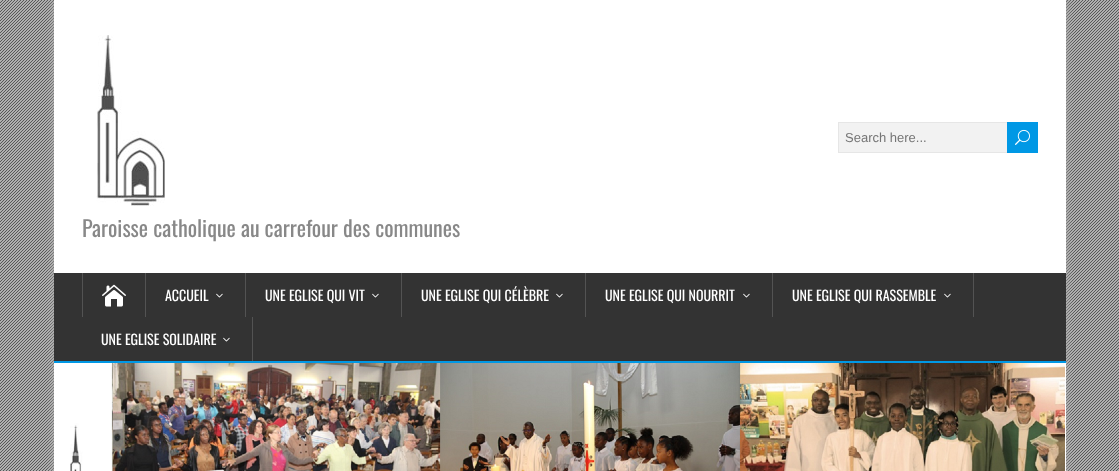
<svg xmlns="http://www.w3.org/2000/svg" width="1119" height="471">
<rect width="100%" height="100%" fill="#afafaf"/>
<image x="0" y="0" width="1119" height="471" href="media/1.png"/>
<rect x="54" width="1012" height="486" fill="#aaa" filter="blur(5px)"/>
<rect x="54" width="1012" height="471" fill="#fff"/>
<image x="96" y="35" width="69" height="171" href="media/2.png"/>
<rect x="839" y="123" width="168" height="29" fill="#f2f2f2"/>
<rect x="838.5" y="122.5" width="199" height="30" fill="none" stroke="#e6e6e6"/>
<text x="845" y="142" style="font-family:Liberation Sans;font-size:13px;fill:#757575">Search here...</text>
<rect x="1007" y="122" width="31" height="31" fill="#0098e5"/>
<image x="1015" y="129" width="15" height="16" href="media/3.png"/>
<text x="82" y="237" style="font-family:Oswald;font-size:22px;fill:#888">Paroisse catholique au carrefour des communes</text>
<rect x="54" y="273" width="1012" height="88" fill="#333"/>
<rect x="54" y="361" width="1012" height="2" fill="#0098e5"/>
<rect x="145" y="273" width="1" height="44" fill="#535353"/>
<rect x="82" y="273" width="1" height="44" fill="#535353"/>
<image x="102" y="284" width="24" height="23" href="media/4.png"/>
<rect x="245" y="273" width="1" height="44" fill="#535353"/>
<text x="165" y="301" style="font-family:Oswald;font-size:14px;fill:#fff">ACCUEIL</text>
<image x="216" y="293" width="7" height="5" href="media/5.png"/>
<rect x="401" y="273" width="1" height="44" fill="#535353"/>
<text x="265" y="301" style="font-family:Oswald;font-size:14px;fill:#fff">UNE EGLISE QUI VIT</text>
<image x="372" y="293" width="7" height="5" href="media/5.png"/>
<rect x="585" y="273" width="1" height="44" fill="#535353"/>
<text x="421" y="301" style="font-family:Oswald;font-size:14px;fill:#fff">UNE EGLISE QUI CÉLÈBRE</text>
<image x="556" y="293" width="7" height="5" href="media/5.png"/>
<rect x="772" y="273" width="1" height="44" fill="#535353"/>
<text x="605" y="301" style="font-family:Oswald;font-size:14px;fill:#fff">UNE EGLISE QUI NOURRIT</text>
<image x="743" y="293" width="7" height="5" href="media/5.png"/>
<rect x="973" y="273" width="1" height="44" fill="#535353"/>
<text x="792" y="301" style="font-family:Oswald;font-size:14px;fill:#fff">UNE EGLISE QUI RASSEMBLE</text>
<image x="944" y="293" width="7" height="5" href="media/5.png"/>
<rect x="252" y="317" width="1" height="44" fill="#535353"/>
<text x="101" y="345" style="font-family:Oswald;font-size:14px;fill:#fff">UNE EGLISE SOLIDAIRE</text>
<image x="223" y="337" width="7" height="5" href="media/5.png"/>
<image x="70" y="363" width="995" height="108" href="media/6.png"/>
</svg>
